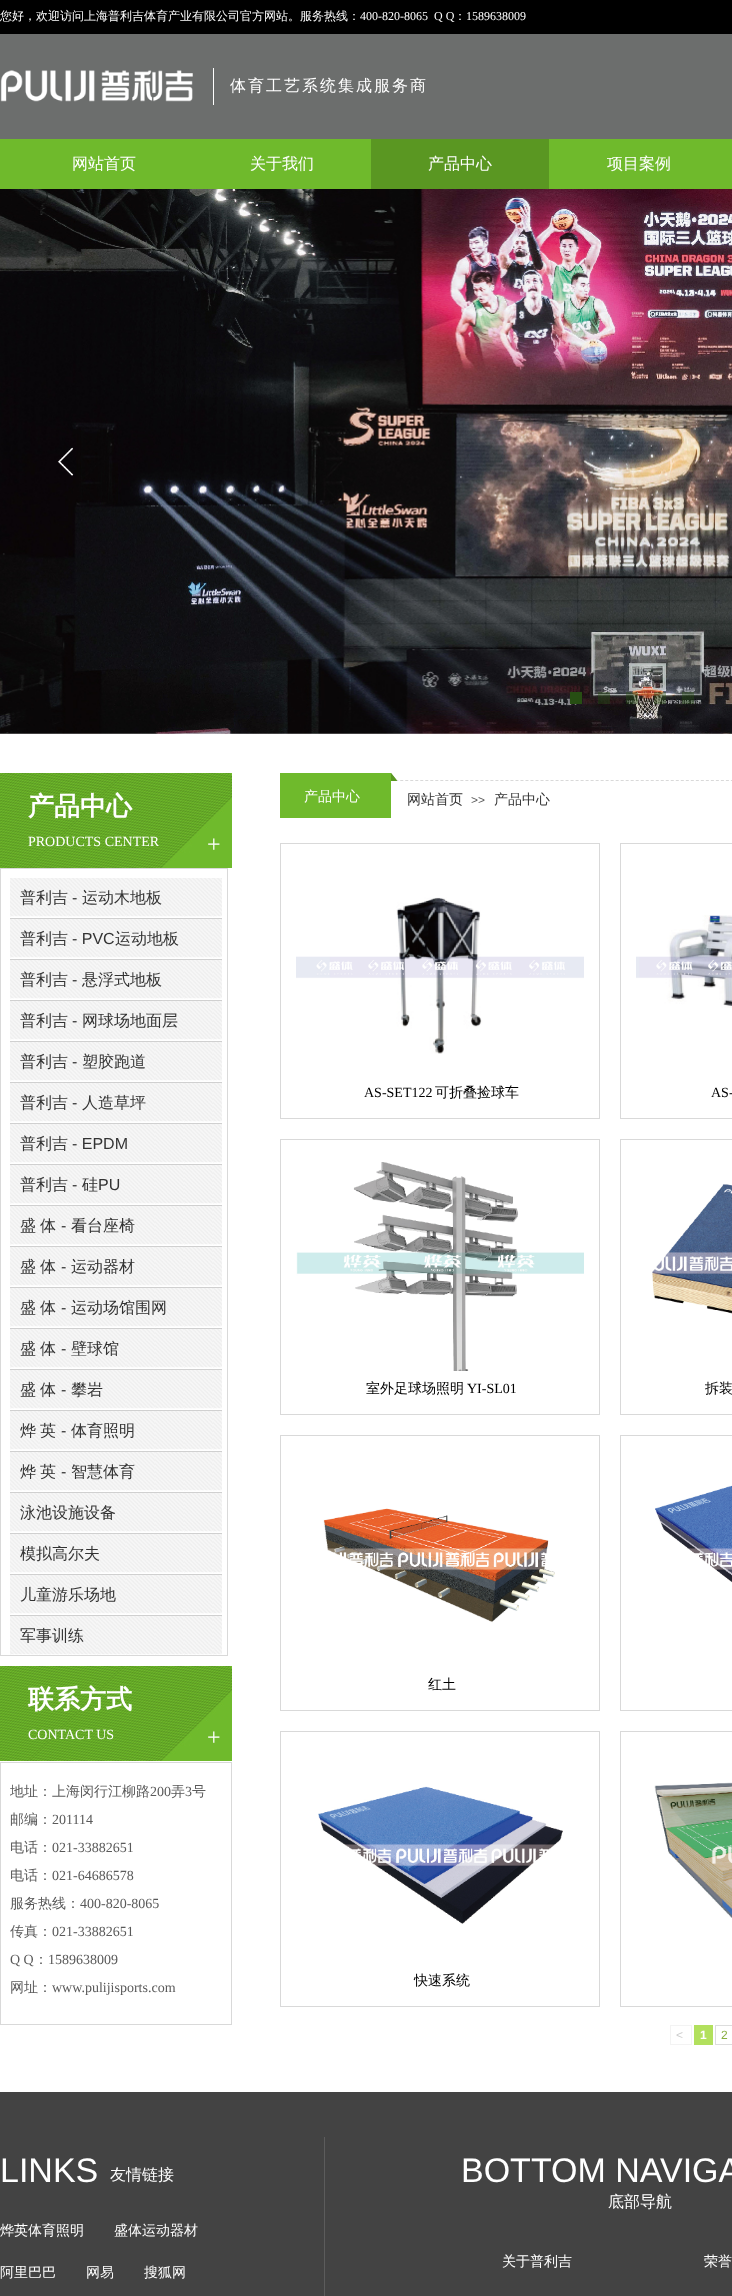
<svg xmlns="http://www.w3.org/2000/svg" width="732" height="2296">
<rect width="100%" height="100%" fill="#fff"/>
<rect width="732" height="34" fill="#000"/>
<text x="0" y="20" style="font-family:WenQuanYi Zen Hei;font-size:12px;font-weight:500;fill:#fff">您好，欢迎访问上海普利吉体育产业有限公司官方网站。服务热线：</text>
<text x="360" y="20" style="font-family:Liberation Serif;font-size:12px;fill:#fff">400-820-8065</text>
<text x="434" y="20" style="font-family:Liberation Serif;font-size:12px;fill:#fff">Q Q</text>
<text x="454" y="20" style="font-family:WenQuanYi Zen Hei;font-size:12px;font-weight:500;fill:#fff">：</text>
<text x="466" y="20" style="font-family:Liberation Serif;font-size:12px;fill:#fff">1589638009</text>
<rect y="34" width="732" height="105" fill="#6c6e6d"/>
<image x="0" y="70" width="193" height="32" href="media/1.png"/>
<rect x="213" y="68" width="1" height="37" fill="#fff"/>
<text x="230" y="91" style="font-family:WenQuanYi Zen Hei;font-size:16px;font-weight:500;letter-spacing:2px;fill:#fff">体育工艺系统集成服务商</text>
<rect y="139" width="732" height="50" fill="#6fba2c"/>
<text x="72" y="169" style="font-family:WenQuanYi Zen Hei;font-size:16px;font-weight:500;fill:#fff">网站首页</text>
<text x="250" y="169" style="font-family:WenQuanYi Zen Hei;font-size:16px;font-weight:500;fill:#fff">关于我们</text>
<rect x="371" y="139" width="178" height="50" fill="#5a9722"/>
<text x="428" y="169" style="font-family:WenQuanYi Zen Hei;font-size:16px;font-weight:500;fill:#fff">产品中心</text>
<text x="607" y="169" style="font-family:WenQuanYi Zen Hei;font-size:16px;font-weight:500;fill:#fff">项目案例</text>
<image x="0" y="189" width="732" height="545" href="media/2.png"/>
<image x="57" y="447" width="17" height="29" href="media/3.png"/>
<rect x="570" y="692" width="12" height="12" fill="#274e13"/>
<rect x="598" y="692" width="12" height="12" fill="#274e1366"/>
<rect x="626" y="692" width="12" height="12" fill="#274e1366"/>
<rect x="654" y="692" width="12" height="12" fill="#274e1366"/>
<rect x="682" y="692" width="12" height="12" fill="#274e1366"/>
<image x="0" y="773" width="232" height="95" href="media/4.png"/>
<text x="28" y="815" style="font-family:WenQuanYi Zen Hei;font-size:26px;font-weight:bold;fill:#fff">产品中心</text>
<text x="28" y="846" style="font-family:Liberation Serif;font-size:14px;fill:#fff">PRODUCTS CENTER</text>
<text x="207" y="852" style="font-family:Liberation Serif;font-size:24px;fill:#fff">+</text>
<path d="M280 780.5h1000" fill="none" stroke="#d9d9d9" stroke-dasharray="3 2.01"/>
<image x="280" y="773" width="117" height="45" href="media/5.png"/>
<text x="304" y="801" style="font-family:WenQuanYi Zen Hei;font-size:14px;font-weight:500;fill:#fff">产品中心</text>
<text x="407" y="804" style="font-family:WenQuanYi Zen Hei;font-size:14px;font-weight:500;fill:#333">网站首页</text>
<text x="471" y="804" style="font-family:Liberation Sans;font-size:12px;fill:#5a5a5a">&gt;&gt;</text>
<text x="494" y="804" style="font-family:WenQuanYi Zen Hei;font-size:14px;font-weight:500;fill:#333">产品中心</text>
<rect x="0.5" y="868.5" width="227" height="787" fill="none" stroke="#d9d9d9"/>
<image x="10" y="878" width="212" height="39" href="media/6.png"/>
<rect x="10" y="918" width="212" height="1" fill="#d0d0d0"/>
<text x="20" y="903" style="font-family:WenQuanYi Zen Hei;font-size:16px;font-weight:500;fill:#333">普利吉</text>
<text x="72" y="903" style="font-family:Liberation Sans;font-size:16px;fill:#333">-</text>
<text x="82" y="903" style="font-family:WenQuanYi Zen Hei;font-size:16px;font-weight:500;fill:#333">运动木地板</text>
<image x="10" y="919" width="212" height="39" href="media/6.png"/>
<rect x="10" y="959" width="212" height="1" fill="#d0d0d0"/>
<text x="20" y="944" style="font-family:WenQuanYi Zen Hei;font-size:16px;font-weight:500;fill:#333">普利吉</text>
<text x="72" y="944" style="font-family:Liberation Sans;font-size:16px;fill:#333">- PVC</text>
<text x="115" y="944" style="font-family:WenQuanYi Zen Hei;font-size:16px;font-weight:500;fill:#333">运动地板</text>
<image x="10" y="960" width="212" height="39" href="media/6.png"/>
<rect x="10" y="1000" width="212" height="1" fill="#d0d0d0"/>
<text x="20" y="985" style="font-family:WenQuanYi Zen Hei;font-size:16px;font-weight:500;fill:#333">普利吉</text>
<text x="72" y="985" style="font-family:Liberation Sans;font-size:16px;fill:#333">-</text>
<text x="82" y="985" style="font-family:WenQuanYi Zen Hei;font-size:16px;font-weight:500;fill:#333">悬浮式地板</text>
<image x="10" y="1001" width="212" height="39" href="media/6.png"/>
<rect x="10" y="1041" width="212" height="1" fill="#d0d0d0"/>
<text x="20" y="1026" style="font-family:WenQuanYi Zen Hei;font-size:16px;font-weight:500;fill:#333">普利吉</text>
<text x="72" y="1026" style="font-family:Liberation Sans;font-size:16px;fill:#333">-</text>
<text x="82" y="1026" style="font-family:WenQuanYi Zen Hei;font-size:16px;font-weight:500;fill:#333">网球场地面层</text>
<image x="10" y="1042" width="212" height="39" href="media/6.png"/>
<rect x="10" y="1082" width="212" height="1" fill="#d0d0d0"/>
<text x="20" y="1067" style="font-family:WenQuanYi Zen Hei;font-size:16px;font-weight:500;fill:#333">普利吉</text>
<text x="72" y="1067" style="font-family:Liberation Sans;font-size:16px;fill:#333">-</text>
<text x="82" y="1067" style="font-family:WenQuanYi Zen Hei;font-size:16px;font-weight:500;fill:#333">塑胶跑道</text>
<image x="10" y="1083" width="212" height="39" href="media/6.png"/>
<rect x="10" y="1123" width="212" height="1" fill="#d0d0d0"/>
<text x="20" y="1108" style="font-family:WenQuanYi Zen Hei;font-size:16px;font-weight:500;fill:#333">普利吉</text>
<text x="72" y="1108" style="font-family:Liberation Sans;font-size:16px;fill:#333">-</text>
<text x="82" y="1108" style="font-family:WenQuanYi Zen Hei;font-size:16px;font-weight:500;fill:#333">人造草坪</text>
<image x="10" y="1124" width="212" height="39" href="media/6.png"/>
<rect x="10" y="1164" width="212" height="1" fill="#d0d0d0"/>
<text x="20" y="1149" style="font-family:WenQuanYi Zen Hei;font-size:16px;font-weight:500;fill:#333">普利吉</text>
<text x="72" y="1149" style="font-family:Liberation Sans;font-size:16px;fill:#333">- EPDM</text>
<image x="10" y="1165" width="212" height="39" href="media/6.png"/>
<rect x="10" y="1205" width="212" height="1" fill="#d0d0d0"/>
<text x="20" y="1190" style="font-family:WenQuanYi Zen Hei;font-size:16px;font-weight:500;fill:#333">普利吉</text>
<text x="72" y="1190" style="font-family:Liberation Sans;font-size:16px;fill:#333">-</text>
<text x="82" y="1190" style="font-family:WenQuanYi Zen Hei;font-size:16px;font-weight:500;fill:#333">硅</text>
<text x="98" y="1190" style="font-family:Liberation Sans;font-size:16px;fill:#333">PU</text>
<image x="10" y="1206" width="212" height="39" href="media/6.png"/>
<rect x="10" y="1246" width="212" height="1" fill="#d0d0d0"/>
<text x="20" y="1231" style="font-family:WenQuanYi Zen Hei;font-size:16px;font-weight:500;fill:#333">盛</text>
<text x="40" y="1231" style="font-family:WenQuanYi Zen Hei;font-size:16px;font-weight:500;fill:#333">体</text>
<text x="61" y="1231" style="font-family:Liberation Sans;font-size:16px;fill:#333">-</text>
<text x="71" y="1231" style="font-family:WenQuanYi Zen Hei;font-size:16px;font-weight:500;fill:#333">看台座椅</text>
<image x="10" y="1247" width="212" height="39" href="media/6.png"/>
<rect x="10" y="1287" width="212" height="1" fill="#d0d0d0"/>
<text x="20" y="1272" style="font-family:WenQuanYi Zen Hei;font-size:16px;font-weight:500;fill:#333">盛</text>
<text x="40" y="1272" style="font-family:WenQuanYi Zen Hei;font-size:16px;font-weight:500;fill:#333">体</text>
<text x="61" y="1272" style="font-family:Liberation Sans;font-size:16px;fill:#333">-</text>
<text x="71" y="1272" style="font-family:WenQuanYi Zen Hei;font-size:16px;font-weight:500;fill:#333">运动器材</text>
<image x="10" y="1288" width="212" height="39" href="media/6.png"/>
<rect x="10" y="1328" width="212" height="1" fill="#d0d0d0"/>
<text x="20" y="1313" style="font-family:WenQuanYi Zen Hei;font-size:16px;font-weight:500;fill:#333">盛</text>
<text x="40" y="1313" style="font-family:WenQuanYi Zen Hei;font-size:16px;font-weight:500;fill:#333">体</text>
<text x="61" y="1313" style="font-family:Liberation Sans;font-size:16px;fill:#333">-</text>
<text x="71" y="1313" style="font-family:WenQuanYi Zen Hei;font-size:16px;font-weight:500;fill:#333">运动场馆围网</text>
<image x="10" y="1329" width="212" height="39" href="media/6.png"/>
<rect x="10" y="1369" width="212" height="1" fill="#d0d0d0"/>
<text x="20" y="1354" style="font-family:WenQuanYi Zen Hei;font-size:16px;font-weight:500;fill:#333">盛</text>
<text x="40" y="1354" style="font-family:WenQuanYi Zen Hei;font-size:16px;font-weight:500;fill:#333">体</text>
<text x="61" y="1354" style="font-family:Liberation Sans;font-size:16px;fill:#333">-</text>
<text x="71" y="1354" style="font-family:WenQuanYi Zen Hei;font-size:16px;font-weight:500;fill:#333">壁球馆</text>
<image x="10" y="1370" width="212" height="39" href="media/6.png"/>
<rect x="10" y="1410" width="212" height="1" fill="#d0d0d0"/>
<text x="20" y="1395" style="font-family:WenQuanYi Zen Hei;font-size:16px;font-weight:500;fill:#333">盛</text>
<text x="40" y="1395" style="font-family:WenQuanYi Zen Hei;font-size:16px;font-weight:500;fill:#333">体</text>
<text x="61" y="1395" style="font-family:Liberation Sans;font-size:16px;fill:#333">-</text>
<text x="71" y="1395" style="font-family:WenQuanYi Zen Hei;font-size:16px;font-weight:500;fill:#333">攀岩</text>
<image x="10" y="1411" width="212" height="39" href="media/6.png"/>
<rect x="10" y="1451" width="212" height="1" fill="#d0d0d0"/>
<text x="20" y="1436" style="font-family:WenQuanYi Zen Hei;font-size:16px;font-weight:500;fill:#333">烨</text>
<text x="40" y="1436" style="font-family:WenQuanYi Zen Hei;font-size:16px;font-weight:500;fill:#333">英</text>
<text x="61" y="1436" style="font-family:Liberation Sans;font-size:16px;fill:#333">-</text>
<text x="71" y="1436" style="font-family:WenQuanYi Zen Hei;font-size:16px;font-weight:500;fill:#333">体育照明</text>
<image x="10" y="1452" width="212" height="39" href="media/6.png"/>
<rect x="10" y="1492" width="212" height="1" fill="#d0d0d0"/>
<text x="20" y="1477" style="font-family:WenQuanYi Zen Hei;font-size:16px;font-weight:500;fill:#333">烨</text>
<text x="40" y="1477" style="font-family:WenQuanYi Zen Hei;font-size:16px;font-weight:500;fill:#333">英</text>
<text x="61" y="1477" style="font-family:Liberation Sans;font-size:16px;fill:#333">-</text>
<text x="71" y="1477" style="font-family:WenQuanYi Zen Hei;font-size:16px;font-weight:500;fill:#333">智慧体育</text>
<image x="10" y="1493" width="212" height="39" href="media/6.png"/>
<rect x="10" y="1533" width="212" height="1" fill="#d0d0d0"/>
<text x="20" y="1518" style="font-family:WenQuanYi Zen Hei;font-size:16px;font-weight:500;fill:#333">泳池设施设备</text>
<image x="10" y="1534" width="212" height="39" href="media/6.png"/>
<rect x="10" y="1574" width="212" height="1" fill="#d0d0d0"/>
<text x="20" y="1559" style="font-family:WenQuanYi Zen Hei;font-size:16px;font-weight:500;fill:#333">模拟高尔夫</text>
<image x="10" y="1575" width="212" height="39" href="media/6.png"/>
<rect x="10" y="1615" width="212" height="1" fill="#d0d0d0"/>
<text x="20" y="1600" style="font-family:WenQuanYi Zen Hei;font-size:16px;font-weight:500;fill:#333">儿童游乐场地</text>
<image x="10" y="1616" width="212" height="39" href="media/6.png"/>
<text x="20" y="1641" style="font-family:WenQuanYi Zen Hei;font-size:16px;font-weight:500;fill:#333">军事训练</text>
<rect x="280.5" y="843.5" width="319" height="275" fill="none" stroke="#d9d9d9"/>
<image x="296" y="897" width="288" height="157" href="media/7.png"/>
<text x="364" y="1097" style="font-family:Liberation Serif;font-size:14px;fill:#000">AS-SET122</text>
<text x="435" y="1097" style="font-family:WenQuanYi Zen Hei;font-size:14px;font-weight:500;fill:#000">可折叠捡球车</text>
<rect x="620.5" y="843.5" width="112" height="275" fill="none" stroke="#d9d9d9"/>
<image x="636" y="915" width="96" height="93" href="media/8.png"/>
<text x="711" y="1097" style="font-family:Liberation Serif;font-size:14px;fill:#000">AS-</text>
<rect x="280.5" y="1139.5" width="319" height="275" fill="none" stroke="#d9d9d9"/>
<image x="296" y="1162" width="288" height="209" href="media/9.png"/>
<text x="366" y="1393" style="font-family:WenQuanYi Zen Hei;font-size:14px;font-weight:500;fill:#000">室外足球场照明</text>
<text x="467" y="1393" style="font-family:Liberation Serif;font-size:14px;fill:#000">YI-SL01</text>
<rect x="620.5" y="1139.5" width="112" height="275" fill="none" stroke="#d9d9d9"/>
<image x="652" y="1184" width="80" height="130" href="media/10.png"/>
<text x="705" y="1393" style="font-family:WenQuanYi Zen Hei;font-size:14px;font-weight:500;fill:#000">拆装</text>
<rect x="280.5" y="1435.5" width="319" height="275" fill="none" stroke="#d9d9d9"/>
<image x="323" y="1508" width="232" height="115" href="media/11.png"/>
<text x="428" y="1689" style="font-family:WenQuanYi Zen Hei;font-size:14px;font-weight:500;fill:#000">红土</text>
<rect x="620.5" y="1435.5" width="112" height="275" fill="none" stroke="#d9d9d9"/>
<image x="655" y="1485" width="77" height="98" href="media/12.png"/>
<rect x="280.5" y="1731.5" width="319" height="275" fill="none" stroke="#d9d9d9"/>
<image x="318" y="1786" width="245" height="138" href="media/13.png"/>
<text x="414" y="1985" style="font-family:WenQuanYi Zen Hei;font-size:14px;font-weight:500;fill:#000">快速系统</text>
<rect x="620.5" y="1731.5" width="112" height="275" fill="none" stroke="#d9d9d9"/>
<image x="654" y="1782" width="78" height="136" href="media/14.png"/>
<rect x="670.5" y="2025.5" width="21" height="19" fill="none" stroke="#f3f3f3"/>
<text x="676" y="2039" style="font-family:Liberation Sans;font-size:12px;fill:#ccc">&lt;</text>
<rect x="694" y="2025" width="19" height="20" fill="#b2e05d"/>
<text x="700" y="2039" style="font-family:Liberation Sans;font-size:12px;font-weight:bold;fill:#fff">1</text>
<rect x="715.5" y="2025.5" width="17" height="19" fill="none" stroke="#ddd"/>
<text x="721" y="2039" style="font-family:Liberation Sans;font-size:12px;fill:#88af3f">2</text>
<image x="0" y="1666" width="232" height="95" href="media/4.png"/>
<text x="28" y="1708" style="font-family:WenQuanYi Zen Hei;font-size:26px;font-weight:bold;fill:#fff">联系方式</text>
<text x="28" y="1739" style="font-family:Liberation Serif;font-size:14px;fill:#fff">CONTACT US</text>
<text x="207" y="1745" style="font-family:Liberation Serif;font-size:24px;fill:#fff">+</text>
<rect x="0.5" y="1762.5" width="231" height="262" fill="none" stroke="#d9d9d9"/>
<text x="10" y="1796" style="font-family:WenQuanYi Zen Hei;font-size:14px;font-weight:500;fill:#5a5a5a">地址：上海闵行江柳路</text>
<text x="150" y="1796" style="font-family:Liberation Serif;font-size:14px;fill:#5a5a5a">200</text>
<text x="171" y="1796" style="font-family:WenQuanYi Zen Hei;font-size:14px;font-weight:500;fill:#5a5a5a">弄</text>
<text x="185" y="1796" style="font-family:Liberation Serif;font-size:14px;fill:#5a5a5a">3</text>
<text x="192" y="1796" style="font-family:WenQuanYi Zen Hei;font-size:14px;font-weight:500;fill:#5a5a5a">号</text>
<text x="10" y="1824" style="font-family:WenQuanYi Zen Hei;font-size:14px;font-weight:500;fill:#5a5a5a">邮编：</text>
<text x="52" y="1824" style="font-family:Liberation Serif;font-size:14px;fill:#5a5a5a">201114</text>
<text x="10" y="1852" style="font-family:WenQuanYi Zen Hei;font-size:14px;font-weight:500;fill:#5a5a5a">电话：</text>
<text x="52" y="1852" style="font-family:Liberation Serif;font-size:14px;fill:#5a5a5a">021-33882651</text>
<text x="10" y="1880" style="font-family:WenQuanYi Zen Hei;font-size:14px;font-weight:500;fill:#5a5a5a">电话：</text>
<text x="52" y="1880" style="font-family:Liberation Serif;font-size:14px;fill:#5a5a5a">021-64686578</text>
<text x="10" y="1908" style="font-family:WenQuanYi Zen Hei;font-size:14px;font-weight:500;fill:#5a5a5a">服务热线：</text>
<text x="80" y="1908" style="font-family:Liberation Serif;font-size:14px;fill:#5a5a5a">400-820-8065</text>
<text x="10" y="1936" style="font-family:WenQuanYi Zen Hei;font-size:14px;font-weight:500;fill:#5a5a5a">传真：</text>
<text x="52" y="1936" style="font-family:Liberation Serif;font-size:14px;fill:#5a5a5a">021-33882651</text>
<text x="10" y="1964" style="font-family:Liberation Serif;font-size:14px;fill:#5a5a5a">Q Q</text>
<text x="34" y="1964" style="font-family:WenQuanYi Zen Hei;font-size:14px;font-weight:500;fill:#5a5a5a">：</text>
<text x="48" y="1964" style="font-family:Liberation Serif;font-size:14px;fill:#5a5a5a">1589638009</text>
<text x="10" y="1992" style="font-family:WenQuanYi Zen Hei;font-size:14px;font-weight:500;fill:#5a5a5a">网址：</text>
<text x="52" y="1992" style="font-family:Liberation Serif;font-size:14px;fill:#5a5a5a">www.pulijisports.com</text>
<rect y="2092" width="732" height="204" fill="#434343"/>
<text x="0" y="2182" style="font-family:Liberation Sans;font-size:34px;fill:#fff">LINKS</text>
<text x="110" y="2180" style="font-family:WenQuanYi Zen Hei;font-size:16px;font-weight:500;fill:#fff">友情链接</text>
<rect x="324" y="2137" width="1" height="159" fill="#5c5c5c"/>
<text x="461" y="2182" style="font-family:Liberation Sans;font-size:34px;fill:#fff">BOTTOM NAVIGA</text>
<text x="608" y="2207" style="font-family:WenQuanYi Zen Hei;font-size:16px;font-weight:500;fill:#fff">底部导航</text>
<text x="0" y="2235" style="font-family:WenQuanYi Zen Hei;font-size:14px;font-weight:500;fill:#fff">烨英体育照明</text>
<text x="114" y="2235" style="font-family:WenQuanYi Zen Hei;font-size:14px;font-weight:500;fill:#fff">盛体运动器材</text>
<text x="0" y="2277" style="font-family:WenQuanYi Zen Hei;font-size:14px;font-weight:500;fill:#fff">阿里巴巴</text>
<text x="86" y="2277" style="font-family:WenQuanYi Zen Hei;font-size:14px;font-weight:500;fill:#fff">网易</text>
<text x="144" y="2277" style="font-family:WenQuanYi Zen Hei;font-size:14px;font-weight:500;fill:#fff">搜狐网</text>
<text x="502" y="2266" style="font-family:WenQuanYi Zen Hei;font-size:14px;font-weight:500;fill:#fff">关于普利吉</text>
<text x="704" y="2266" style="font-family:WenQuanYi Zen Hei;font-size:14px;font-weight:500;fill:#fff">荣誉</text>
</svg>
